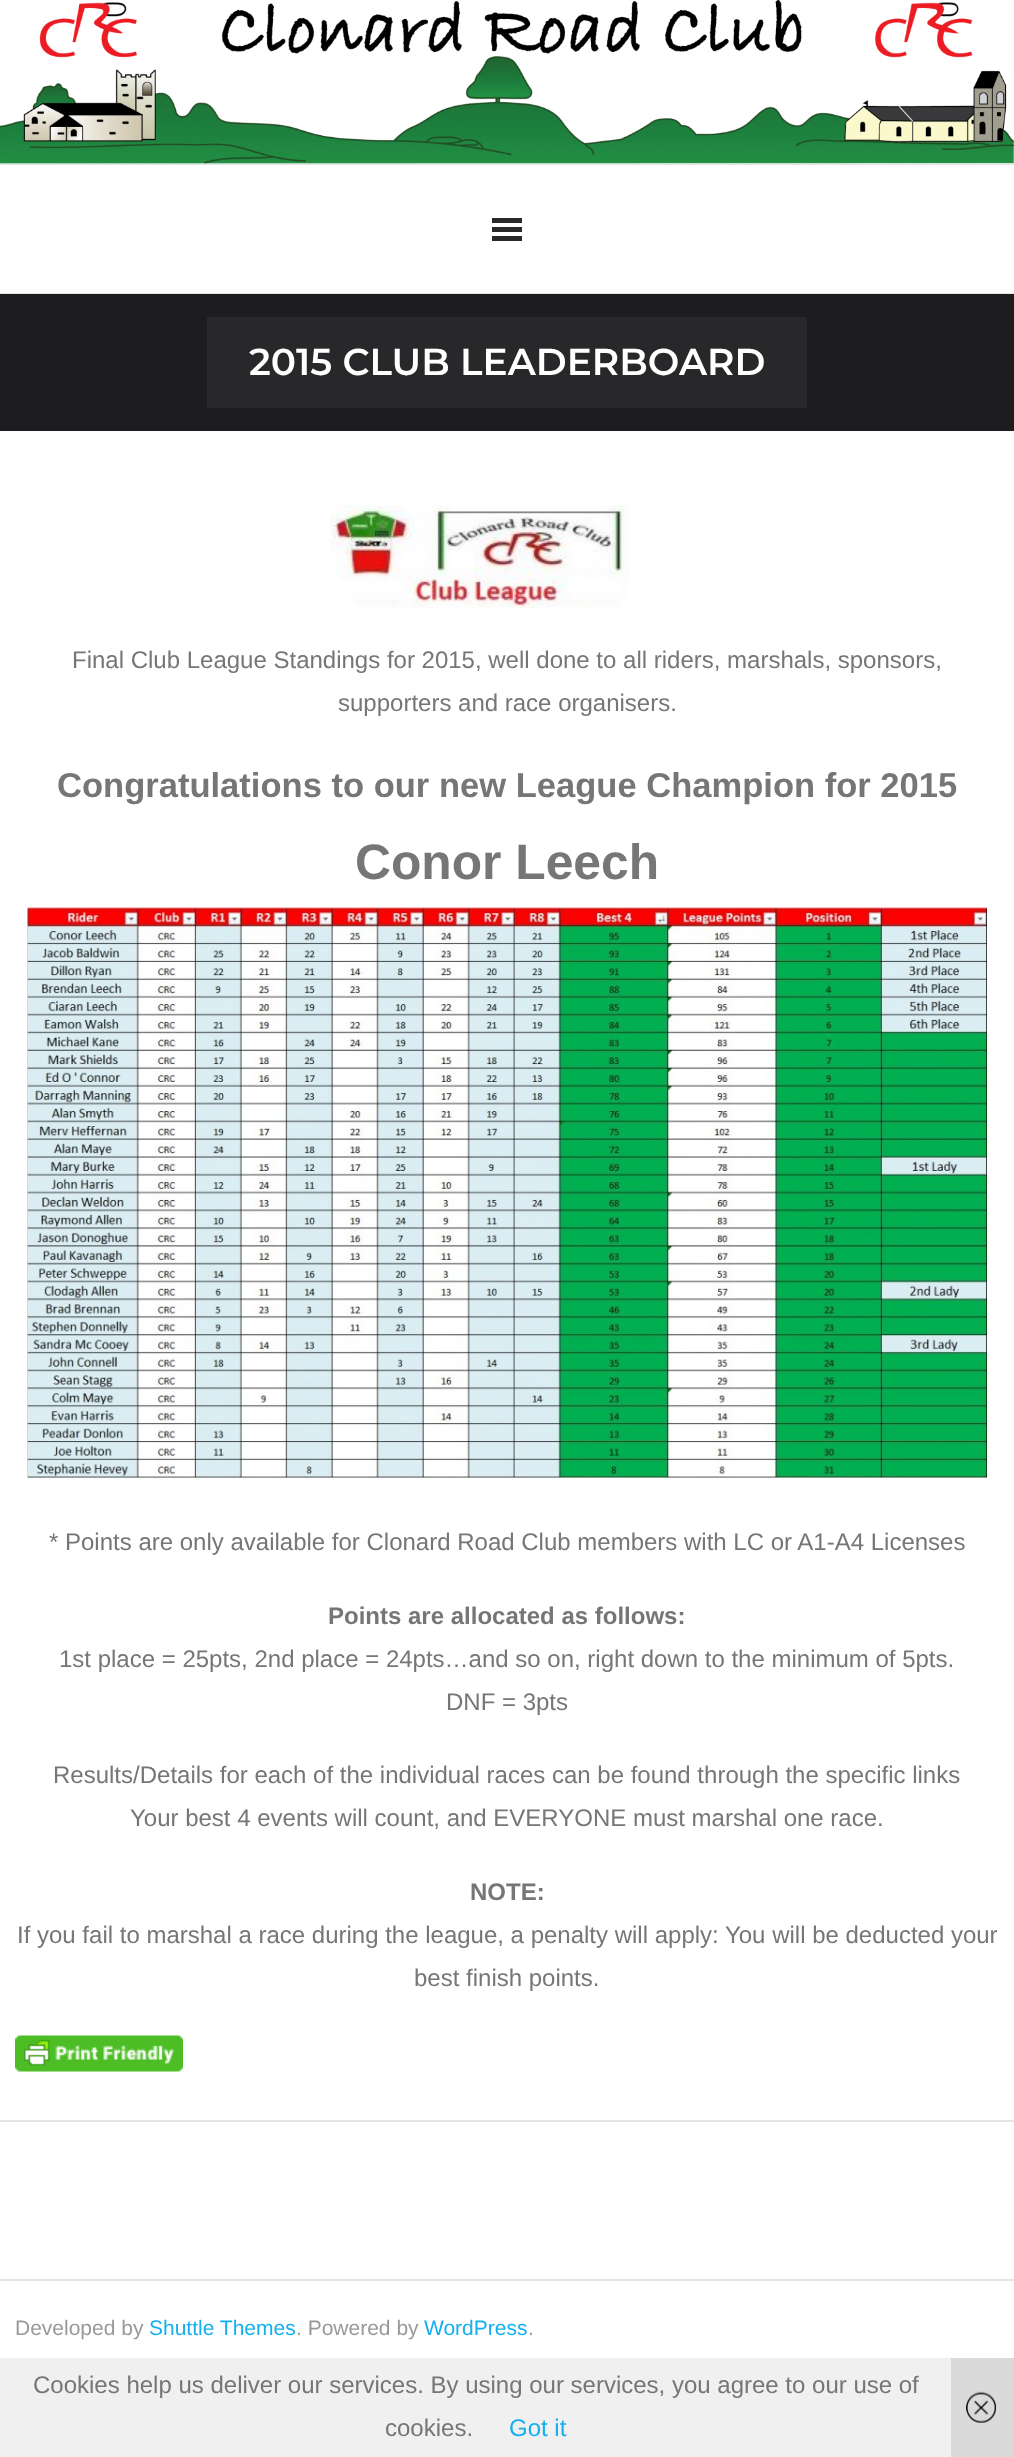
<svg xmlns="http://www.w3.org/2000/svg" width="1014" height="2457">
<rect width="100%" height="100%" fill="#fff"/>
<image x="0" y="0" width="1014" height="164" href="media/1.png"/>
<rect y="164" width="1014" height="1" fill="#e5e5e5"/>
<rect y="293" width="1014" height="1" fill="#e5e5e5"/>
<rect x="492" y="218" width="30" height="5" fill="#292929"/>
<rect x="492" y="227" width="30" height="5" fill="#292929"/>
<rect x="492" y="236" width="30" height="5" fill="#292929"/>
<rect y="294" width="1014" height="137" fill="#1d1d1f"/>
<rect x="207" y="317" width="600" height="91" fill="#28282a"/>
<text x="249" y="375" style="font-family:Montserrat;font-size:37.5px;font-weight:600;fill:#fff">2015 CLUB LEADERBOARD</text>
<image x="330" y="505" width="300" height="104" href="media/2.png"/>
<text x="72" y="668" style="font-family:Liberation Sans;font-size:24px;fill:#767676">Final Club League Standings for 2015, well done to all riders, marshals, sponsors,</text>
<text x="338" y="711" style="font-family:Liberation Sans;font-size:24px;fill:#767676">supporters and race organisers.</text>
<text x="57" y="797" style="font-family:Liberation Sans;font-size:34.55px;font-weight:bold;fill:#767676">Congratulations to our new League Champion for 2015</text>
<text x="355" y="879" style="font-family:Liberation Sans;font-size:49.75px;font-weight:bold;fill:#767676">Conor Leech</text>
<image x="27" y="907" width="960" height="571" href="media/3.png"/>
<text x="49" y="1550" style="font-family:Liberation Sans;font-size:24px;fill:#767676">* Points are only available for Clonard Road Club members with LC or A1-A4 Licenses</text>
<text x="328" y="1624" style="font-family:Liberation Sans;font-size:24px;font-weight:bold;fill:#767676">Points are allocated as follows:</text>
<text x="59" y="1667" style="font-family:Liberation Sans;font-size:24px;fill:#767676">1st place = 25pts, 2nd place = 24pts…and so on, right down to the minimum of 5pts.</text>
<text x="446" y="1710" style="font-family:Liberation Sans;font-size:24px;fill:#767676">DNF = 3pts</text>
<text x="53" y="1783" style="font-family:Liberation Sans;font-size:24px;fill:#767676">Results/Details for each of the individual races can be found through the specific links</text>
<text x="130" y="1826" style="font-family:Liberation Sans;font-size:24px;fill:#767676">Your best 4 events will count, and EVERYONE must marshal one race.</text>
<text x="470" y="1900" style="font-family:Liberation Sans;font-size:24px;font-weight:bold;fill:#767676">NOTE:</text>
<text x="17" y="1943" style="font-family:Liberation Sans;font-size:24px;fill:#767676">If you fail to marshal a race during the league, a penalty will apply: You will be deducted your</text>
<text x="414" y="1986" style="font-family:Liberation Sans;font-size:24px;fill:#767676">best finish points.</text>
<image x="15" y="2035" width="168" height="37" href="media/4.png"/>
<rect y="2120" width="1014" height="2" fill="#e5e5e5"/>
<rect y="2279" width="1014" height="2" fill="#e5e5e5"/>
<text x="15" y="2335" style="font-family:Liberation Sans;font-size:21px;fill:#999">Developed by</text>
<text x="149" y="2335" style="font-family:Liberation Sans;font-size:21px;fill:#13aff0">Shuttle Themes</text>
<text x="296" y="2335" style="font-family:Liberation Sans;font-size:21px;fill:#999">. Powered by</text>
<text x="424" y="2335" style="font-family:Liberation Sans;font-size:21px;fill:#13aff0">WordPress</text>
<text x="528" y="2335" style="font-family:Liberation Sans;font-size:21px;fill:#999">.</text>
<rect y="2358" width="951" height="99" fill="#f0f0f0"/>
<text x="33" y="2393" style="font-family:Liberation Sans;font-size:24px;fill:#767676">Cookies help us deliver our services. By using our services, you agree to our use of</text>
<text x="385" y="2436" style="font-family:Liberation Sans;font-size:24px;fill:#767676">cookies.</text>
<text x="509" y="2436" style="font-family:Liberation Sans;font-size:24px;fill:#13aff0">Got it</text>
<rect x="951" y="2358" width="63" height="99" fill="#dadada"/>
<image x="966" y="2391" width="30" height="32" href="media/5.png"/>
</svg>
